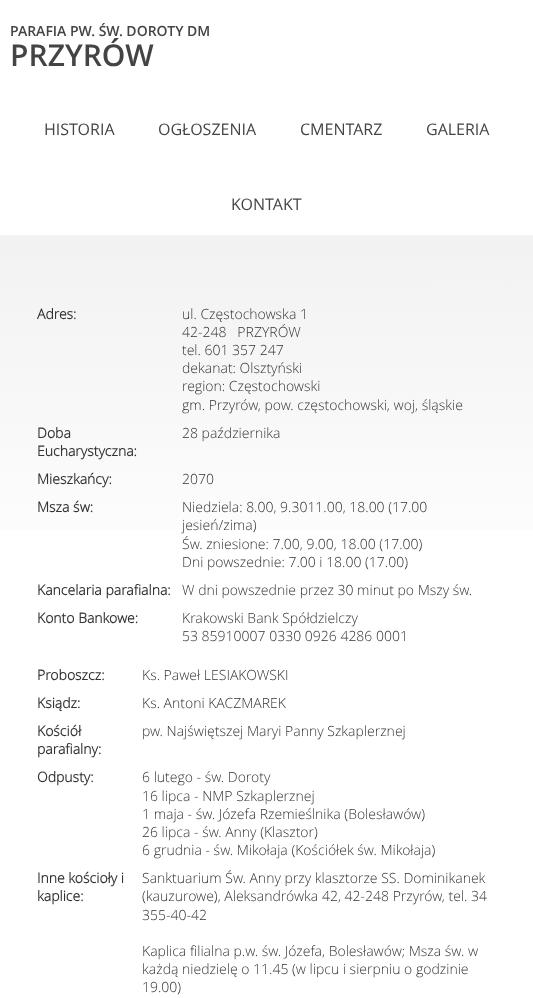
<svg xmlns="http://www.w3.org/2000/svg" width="533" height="998">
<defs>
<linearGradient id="g1" gradientUnits="userSpaceOnUse" x1="266" y1="235" x2="267" y2="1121"><stop offset="0.01" stop-color="#f2f2f2"/><stop offset="0.41" stop-color="#fff"/></linearGradient>
</defs>
<rect width="100%" height="100%" fill="#fff"/>
<text x="10" y="36" style="font-family:Open Sans;font-size:14px;font-weight:600;fill:#444">PARAFIA PW. ŚW. DOROTY DM</text>
<text x="10" y="66" style="font-family:Open Sans;font-size:30px;font-weight:600;fill:#444">PRZYRÓW</text>
<text x="44" y="135" style="font-family:Open Sans;font-size:16px;fill:#444">HISTORIA</text>
<text x="158" y="135" style="font-family:Open Sans;font-size:16px;fill:#444">OGŁOSZENIA</text>
<text x="300" y="135" style="font-family:Open Sans;font-size:16px;fill:#444">CMENTARZ</text>
<text x="426" y="135" style="font-family:Open Sans;font-size:16px;fill:#444">GALERIA</text>
<text x="231" y="210" style="font-family:Open Sans;font-size:16px;fill:#444">KONTAKT</text>
<rect y="235" width="533" height="295" fill="url(#g1)"/>
<text x="37" y="319" style="font-family:Open Sans;font-size:14px;font-weight:bold;fill:#333">Adres:</text>
<text x="182" y="319" style="font-family:Open Sans;font-size:14px;font-weight:300;fill:#333">ul. Częstochowska 1</text>
<text x="182" y="337" style="font-family:Open Sans;font-size:14px;font-weight:300;fill:#333" xml:space="preserve">42-248   PRZYRÓW</text>
<text x="182" y="355" style="font-family:Open Sans;font-size:14px;font-weight:300;fill:#333">tel. 601 357 247</text>
<text x="182" y="373" style="font-family:Open Sans;font-size:14px;font-weight:300;fill:#333">dekanat: Olsztyński</text>
<text x="182" y="391" style="font-family:Open Sans;font-size:14px;font-weight:300;fill:#333">region: Częstochowski</text>
<text x="182" y="410" style="font-family:Open Sans;font-size:14px;font-weight:300;fill:#333">gm. Przyrów, pow. częstochowski, woj, śląskie</text>
<text x="37" y="438" style="font-family:Open Sans;font-size:14px;font-weight:bold;fill:#333">Doba</text>
<text x="37" y="456" style="font-family:Open Sans;font-size:14px;font-weight:bold;fill:#333">Eucharystyczna:</text>
<text x="182" y="438" style="font-family:Open Sans;font-size:14px;font-weight:300;fill:#333">28 października</text>
<text x="37" y="484" style="font-family:Open Sans;font-size:14px;font-weight:bold;fill:#333">Mieszkańcy:</text>
<text x="182" y="484" style="font-family:Open Sans;font-size:14px;font-weight:300;fill:#333">2070</text>
<text x="37" y="512" style="font-family:Open Sans;font-size:14px;font-weight:bold;fill:#333">Msza św:</text>
<text x="182" y="512" style="font-family:Open Sans;font-size:14px;font-weight:300;fill:#333">Niedziela: 8.00, 9.3011.00, 18.00 (17.00</text>
<text x="182" y="530" style="font-family:Open Sans;font-size:14px;font-weight:300;fill:#333">jesień/zima)</text>
<text x="182" y="549" style="font-family:Open Sans;font-size:14px;font-weight:300;fill:#333">Św. zniesione: 7.00, 9.00, 18.00 (17.00)</text>
<text x="182" y="567" style="font-family:Open Sans;font-size:14px;font-weight:300;fill:#333">Dni powszednie: 7.00 i 18.00 (17.00)</text>
<text x="37" y="595" style="font-family:Open Sans;font-size:14px;font-weight:bold;fill:#333">Kancelaria parafialna:</text>
<text x="182" y="595" style="font-family:Open Sans;font-size:14px;font-weight:300;fill:#333">W dni powszednie przez 30 minut po Mszy św.</text>
<text x="37" y="623" style="font-family:Open Sans;font-size:14px;font-weight:bold;fill:#333">Konto Bankowe:</text>
<text x="182" y="623" style="font-family:Open Sans;font-size:14px;font-weight:300;fill:#333">Krakowski Bank Spółdzielczy</text>
<text x="182" y="641" style="font-family:Open Sans;font-size:14px;font-weight:300;fill:#333">53 85910007 0330 0926 4286 0001</text>
<text x="37" y="680" style="font-family:Open Sans;font-size:14px;font-weight:bold;fill:#333">Proboszcz:</text>
<text x="142" y="680" style="font-family:Open Sans;font-size:14px;font-weight:300;fill:#333">Ks. Paweł LESIAKOWSKI</text>
<text x="37" y="708" style="font-family:Open Sans;font-size:14px;font-weight:bold;fill:#333">Ksiądz:</text>
<text x="142" y="708" style="font-family:Open Sans;font-size:14px;font-weight:300;fill:#333">Ks. Antoni KACZMAREK</text>
<text x="37" y="736" style="font-family:Open Sans;font-size:14px;font-weight:bold;fill:#333">Kościół</text>
<text x="37" y="754" style="font-family:Open Sans;font-size:14px;font-weight:bold;fill:#333">parafialny:</text>
<text x="142" y="736" style="font-family:Open Sans;font-size:14px;font-weight:300;fill:#333">pw. Najświętszej Maryi Panny Szkaplerznej</text>
<text x="37" y="782" style="font-family:Open Sans;font-size:14px;font-weight:bold;fill:#333">Odpusty:</text>
<text x="142" y="782" style="font-family:Open Sans;font-size:14px;font-weight:300;fill:#333">6 lutego - św. Doroty</text>
<text x="142" y="801" style="font-family:Open Sans;font-size:14px;font-weight:300;fill:#333">16 lipca - NMP Szkaplerznej</text>
<text x="142" y="819" style="font-family:Open Sans;font-size:14px;font-weight:300;fill:#333">1 maja - św. Józefa Rzemieślnika (Bolesławów)</text>
<text x="142" y="837" style="font-family:Open Sans;font-size:14px;font-weight:300;fill:#333">26 lipca - św. Anny (Klasztor)</text>
<text x="142" y="855" style="font-family:Open Sans;font-size:14px;font-weight:300;fill:#333">6 grudnia - św. Mikołaja (Kościółek św. Mikołaja)</text>
<text x="37" y="883" style="font-family:Open Sans;font-size:14px;font-weight:bold;fill:#333">Inne kościoły i</text>
<text x="37" y="901" style="font-family:Open Sans;font-size:14px;font-weight:bold;fill:#333">kaplice:</text>
<text x="142" y="883" style="font-family:Open Sans;font-size:14px;font-weight:300;fill:#333">Sanktuarium Św. Anny przy klasztorze SS. Dominikanek</text>
<text x="142" y="901" style="font-family:Open Sans;font-size:14px;font-weight:300;fill:#333">(kauzurowe), Aleksandrówka 42, 42-248 Przyrów, tel. 34</text>
<text x="142" y="920" style="font-family:Open Sans;font-size:14px;font-weight:300;fill:#333">355-40-42</text>
<text x="142" y="956" style="font-family:Open Sans;font-size:14px;font-weight:300;fill:#333">Kaplica filialna p.w. św. Józefa, Bolesławów; Msza św. w</text>
<text x="142" y="974" style="font-family:Open Sans;font-size:14px;font-weight:300;fill:#333">każdą niedzielę o 11.45 (w lipcu i sierpniu o godzinie</text>
<text x="142" y="992" style="font-family:Open Sans;font-size:14px;font-weight:300;fill:#333">19.00)</text>
</svg>
